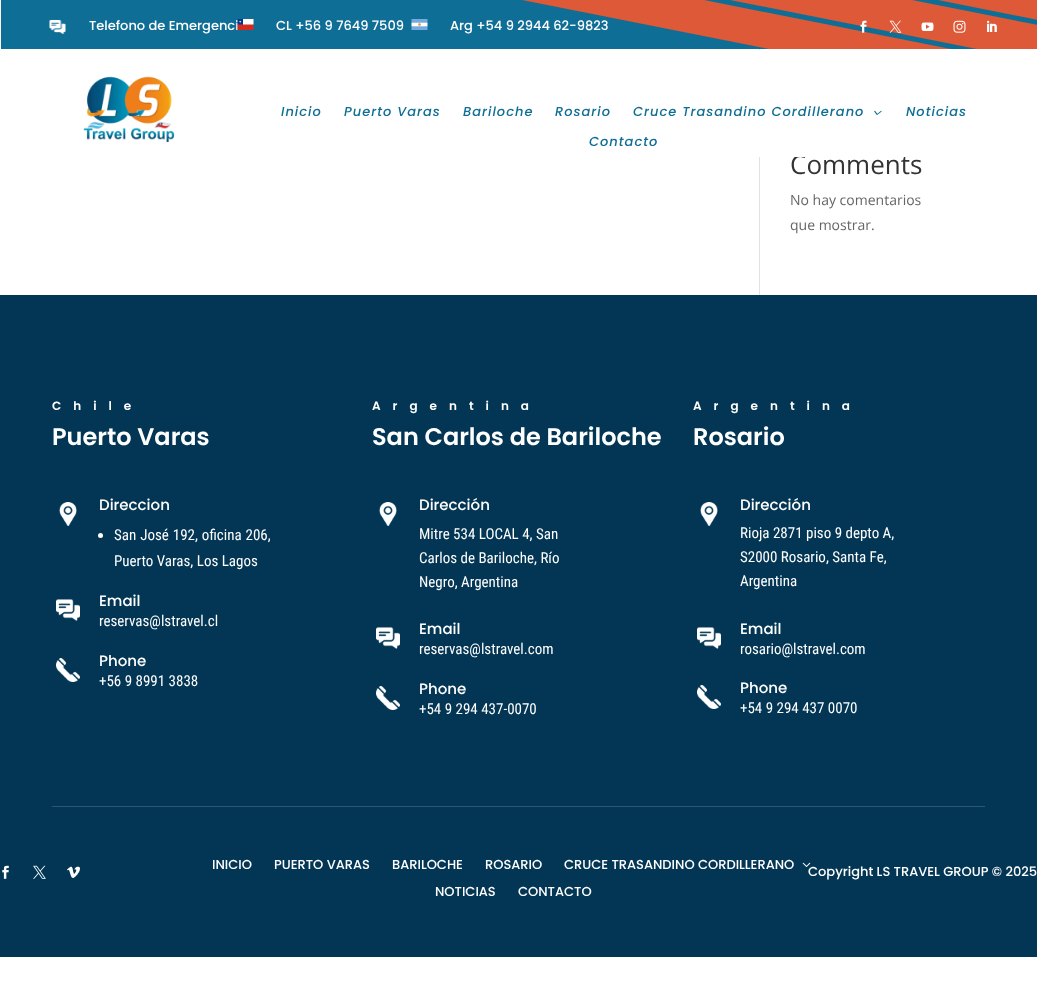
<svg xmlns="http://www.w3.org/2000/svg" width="1037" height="992">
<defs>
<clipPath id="clip1"><rect x="1" width="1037" height="49"/></clipPath>
</defs>
<rect width="100%" height="100%" fill="#fff"/>
<rect x="522" width="515" height="49" fill="#dd5937"/>
<g clip-path="url(#clip1)">
<path d="M0-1v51h774l-257-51z" fill="#0f6e95"/>
<path d="M699-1l257 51h26l-257-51z" fill="#0f6e95"/>
</g>
<path d="M933-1h-26l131 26v-5z" fill="#0f6e95"/>
<image x="49" y="19" width="17" height="15" href="media/1.png"/>
<text x="89" y="30" style="font-family:Poppins;font-size:13px;font-weight:500;fill:#fff">Telefono de Emergenci</text>
<image x="237" y="19" width="17" height="11" href="media/2.png"/>
<text x="276" y="30" style="font-family:Poppins;font-size:13px;font-weight:500;fill:#fff">CL +56 9 7649 7509</text>
<image x="411" y="19" width="17" height="11" href="media/3.png"/>
<text x="450" y="30" style="font-family:Poppins;font-size:13px;font-weight:500;fill:#fff">Arg +54 9 2944 62-9823</text>
<image x="860" y="20" width="7" height="13" href="media/4.png"/>
<image x="889" y="20" width="13" height="13" href="media/5.png"/>
<image x="921" y="22" width="13" height="9" href="media/6.png"/>
<image x="953" y="20" width="13" height="13" href="media/7.png"/>
<image x="987" y="20" width="10" height="12" href="media/8.png"/>
<rect x="759" y="49" width="1" height="246" fill="#e2e2e2"/>
<text x="790" y="174" style="font-family:Open Sans;font-size:26px;fill:#333">Comments</text>
<rect x="759" y="50" width="147" height="107" fill="#fff"/>
<image x="83" y="76" width="92" height="67" href="media/9.png"/>
<text x="281" y="116" style="font-family:Poppins;font-size:13px;font-weight:500;font-style:italic;letter-spacing:1px;fill:#0f6e95">Inicio</text>
<text x="344" y="116" style="font-family:Poppins;font-size:13px;font-weight:500;font-style:italic;letter-spacing:1px;fill:#0f6e95">Puerto Varas</text>
<text x="463" y="116" style="font-family:Poppins;font-size:13px;font-weight:500;font-style:italic;letter-spacing:1px;fill:#0f6e95">Bariloche</text>
<text x="555" y="116" style="font-family:Poppins;font-size:13px;font-weight:500;font-style:italic;letter-spacing:1px;fill:#0f6e95">Rosario</text>
<text x="633" y="116" style="font-family:Poppins;font-size:13px;font-weight:500;font-style:italic;letter-spacing:1px;fill:#0f6e95">Cruce Trasandino Cordillerano</text>
<image x="874" y="110" width="8" height="5" href="media/10.png"/>
<text x="906" y="116" style="font-family:Poppins;font-size:13px;font-weight:500;font-style:italic;letter-spacing:1px;fill:#0f6e95">Noticias</text>
<text x="589" y="146" style="font-family:Poppins;font-size:13px;font-weight:500;font-style:italic;letter-spacing:1px;fill:#0f6e95">Contacto</text>
<text x="790" y="205" style="font-family:Open Sans;font-size:14px;fill:#666">No hay comentarios</text>
<text x="790" y="230" style="font-family:Open Sans;font-size:14px;fill:#666">que mostrar.</text>
<rect y="295" width="1037" height="662" fill="#033654"/>
<text x="52" y="410" style="font-family:Poppins;font-size:12px;font-weight:600;letter-spacing:12px;fill:#fff">Chile</text>
<text x="52" y="445" style="font-family:Poppins;font-size:24px;font-weight:600;fill:#fff">Puerto Varas</text>
<image x="59" y="502" width="18" height="24" href="media/11.png"/>
<text x="99" y="510" style="font-family:Poppins;font-size:15px;font-weight:500;fill:#fff">Direccion</text>
<circle cx="100.5" cy="535.5" r="2.5" fill="#fff"/>
<text x="114" y="540" word-spacing="0.5" style="font-family:Roboto Condensed;font-size:15px;fill:#fff">San José 192, oficina 206,</text>
<text x="114" y="566" style="font-family:Roboto Condensed;font-size:15px;fill:#fff">Puerto Varas, Los Lagos</text>
<image x="56" y="599" width="24" height="22" href="media/12.png"/>
<text x="99" y="606" style="font-family:Poppins;font-size:15px;font-weight:500;fill:#fff">Email</text>
<text x="99" y="626" style="font-family:Roboto Condensed;font-size:15px;fill:#fff">reservas@lstravel.cl</text>
<image x="56" y="658" width="24" height="24" href="media/13.png"/>
<text x="99" y="666" style="font-family:Poppins;font-size:15px;font-weight:500;fill:#fff">Phone</text>
<text x="99" y="686" style="font-family:Roboto Condensed;font-size:15px;fill:#fff">+56 9 8991 3838</text>
<text x="372" y="410" style="font-family:Poppins;font-size:12px;font-weight:600;letter-spacing:12px;fill:#fff">Argentina</text>
<text x="372" y="445" style="font-family:Poppins;font-size:24px;font-weight:600;fill:#fff">San Carlos de Bariloche</text>
<image x="379" y="502" width="18" height="24" href="media/14.png"/>
<text x="419" y="510" style="font-family:Poppins;font-size:15px;font-weight:500;fill:#fff">Dirección</text>
<text x="419" y="539" style="font-family:Roboto Condensed;font-size:15px;fill:#fff">Mitre 534 LOCAL 4, San</text>
<text x="419" y="563" style="font-family:Roboto Condensed;font-size:15px;fill:#fff">Carlos de Bariloche, Río</text>
<text x="419" y="587" style="font-family:Roboto Condensed;font-size:15px;fill:#fff">Negro, Argentina</text>
<image x="376" y="627" width="24" height="22" href="media/15.png"/>
<text x="419" y="634" style="font-family:Poppins;font-size:15px;font-weight:500;fill:#fff">Email</text>
<text x="419" y="654" style="font-family:Roboto Condensed;font-size:15px;fill:#fff">reservas@lstravel.com</text>
<image x="376" y="686" width="24" height="24" href="media/16.png"/>
<text x="419" y="694" style="font-family:Poppins;font-size:15px;font-weight:500;fill:#fff">Phone</text>
<text x="419" y="714" style="font-family:Roboto Condensed;font-size:15px;fill:#fff">+54 9 294 437-0070</text>
<text x="693" y="410" style="font-family:Poppins;font-size:12px;font-weight:600;letter-spacing:12px;fill:#fff">Argentina</text>
<text x="693" y="445" style="font-family:Poppins;font-size:24px;font-weight:600;fill:#fff">Rosario</text>
<image x="700" y="502" width="18" height="24" href="media/14.png"/>
<text x="740" y="510" style="font-family:Poppins;font-size:15px;font-weight:500;fill:#fff">Dirección</text>
<text x="740" y="538" style="font-family:Roboto Condensed;font-size:15px;fill:#fff">Rioja 2871 piso 9 depto A,</text>
<text x="740" y="562" style="font-family:Roboto Condensed;font-size:15px;fill:#fff">S2000 Rosario, Santa Fe,</text>
<text x="740" y="586" style="font-family:Roboto Condensed;font-size:15px;fill:#fff">Argentina</text>
<image x="697" y="627" width="24" height="22" href="media/15.png"/>
<text x="740" y="634" style="font-family:Poppins;font-size:15px;font-weight:500;fill:#fff">Email</text>
<text x="740" y="654" style="font-family:Roboto Condensed;font-size:15px;fill:#fff">rosario@lstravel.com</text>
<image x="697" y="685" width="24" height="24" href="media/16.png"/>
<text x="740" y="693" style="font-family:Poppins;font-size:15px;font-weight:500;fill:#fff">Phone</text>
<text x="740" y="713" style="font-family:Roboto Condensed;font-size:15px;fill:#fff">+54 9 294 437 0070</text>
<rect x="52" y="806" width="933" height="1" fill="#2e5871"/>
<image x="2" y="865" width="7" height="14" href="media/17.png"/>
<image x="33" y="865" width="13" height="14" href="media/18.png"/>
<image x="67" y="866" width="13" height="12" href="media/19.png"/>
<text x="212" y="869" style="font-family:Poppins;font-size:13px;font-weight:500;fill:#fff">INICIO</text>
<text x="274" y="869" style="font-family:Poppins;font-size:13px;font-weight:500;fill:#fff">PUERTO VARAS</text>
<text x="392" y="869" style="font-family:Poppins;font-size:13px;font-weight:500;fill:#fff">BARILOCHE</text>
<text x="485" y="869" style="font-family:Poppins;font-size:13px;font-weight:500;fill:#fff">ROSARIO</text>
<text x="564" y="869" style="font-family:Poppins;font-size:13px;font-weight:500;fill:#fff">CRUCE TRASANDINO CORDILLERANO</text>
<text x="808" y="876" style="font-family:Poppins;font-size:13px;font-weight:500;fill:#fff">Copyright LS TRAVEL GROUP © 2025</text>
<image x="802" y="862" width="9" height="5" href="media/20.png"/>
<text x="435" y="896" style="font-family:Poppins;font-size:13px;font-weight:500;fill:#fff">NOTICIAS</text>
<text x="518" y="896" style="font-family:Poppins;font-size:13px;font-weight:500;fill:#fff">CONTACTO</text>
</svg>
